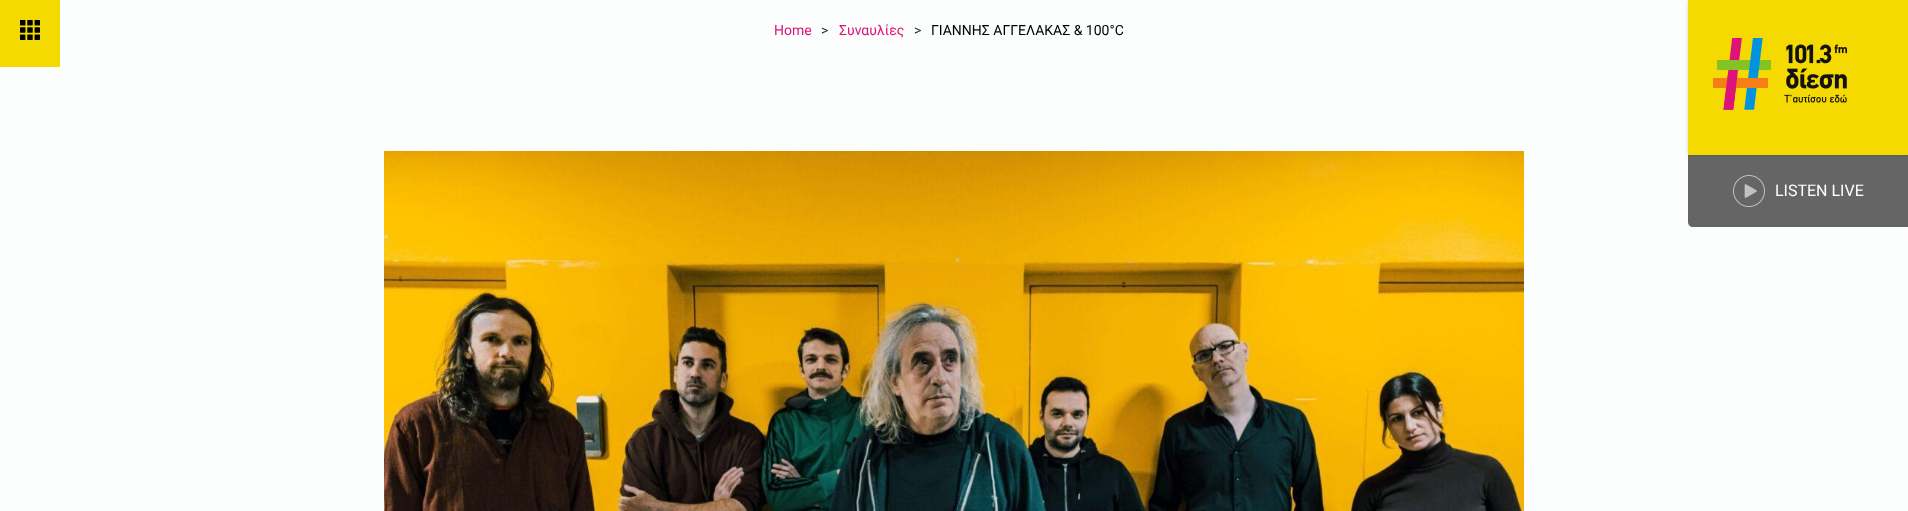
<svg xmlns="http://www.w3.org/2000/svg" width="1908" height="511">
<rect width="100%" height="100%" fill="#fcfdfd"/>
<text x="774" y="35" style="font-family:Roboto;font-size:14px;fill:#dd137a">Home</text>
<text x="821" y="35" style="font-family:Roboto;font-size:14px;fill:#333">&gt;</text>
<text x="839" y="35" style="font-family:Roboto;font-size:14px;fill:#dd137a">Συναυλίες</text>
<text x="914" y="35" style="font-family:Roboto;font-size:14px;fill:#333">&gt;</text>
<text x="931" y="35" style="font-family:Roboto;font-size:14px;fill:#000">ΓΙΑΝΝΗΣ ΑΓΓΕΛΑΚΑΣ &amp; 100°C</text>
<image x="384" y="151" width="1140" height="360" href="media/1.png"/>
<rect width="60" height="67" fill="#f4da01"/>
<image x="20" y="20" width="20" height="20" href="media/2.png"/>
<rect x="1688" width="220" height="155" fill="#00000029" filter="blur(2px)"/>
<rect x="1688" width="220" height="155" fill="#f4da01"/>
<image x="1713" y="38" width="134" height="72" href="media/3.png"/>
<path d="M1688 155h220v72h-215c-3 0-5-2-5-5z" fill="#00000099"/>
<image x="1733" y="175" width="32" height="32" href="media/4.png"/>
<text x="1775" y="196" style="font-family:Roboto;font-size:16px;fill:#fefefe">LISTEN LIVE</text>
</svg>
